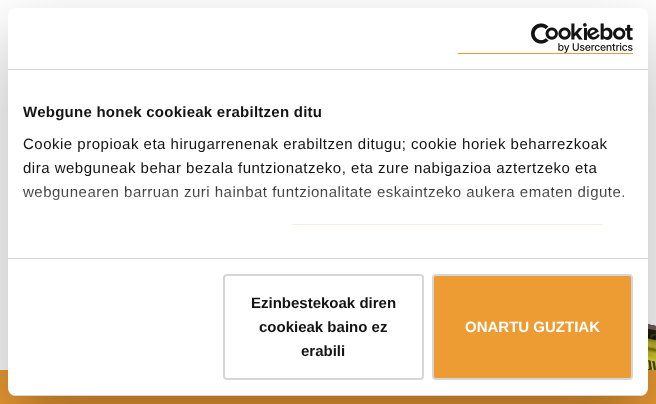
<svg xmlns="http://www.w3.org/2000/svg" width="656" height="404">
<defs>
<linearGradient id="g1" gradientUnits="userSpaceOnUse" x1="322" y1="258" x2="322" y2="183"><stop offset="0" stop-color="#fff"/><stop offset="0.5" stop-color="#fff" stop-opacity="0.8"/><stop offset="1" stop-color="#fff" stop-opacity="0"/></linearGradient>
<clipPath id="clip1"><rect x="8" y="8" width="640" height="388" rx="8"/></clipPath>
</defs>
<rect width="100%" height="100%" fill="#fff"/>
<image x="648" y="266" width="8" height="104" href="media/2.png"/>
<rect y="370" width="656" height="34" fill="#ed9b33"/>
<rect x="8" y="40" width="640" height="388" rx="8" fill="#0000004d" filter="blur(34px)"/>
<rect x="8" y="8" width="640" height="388" rx="8" fill="#fff"/>
<rect x="8" y="69" width="640" height="1" fill="#d6d6d6"/>
<rect x="458" y="53" width="175" height="1" fill="#ed9b33"/>
<image x="531" y="23" width="102" height="30" href="media/1.png"/>
<rect x="8" y="258" width="640" height="1" fill="#d6d6d6"/>
<text x="23" y="117" style="font-family:Liberation Sans;font-size:15px;font-weight:bold;letter-spacing:0.25px;fill:#141414">Webgune honek cookieak erabiltzen ditu</text>
<text x="23" y="149" style="font-family:Liberation Sans;font-size:15px;letter-spacing:0.5px;fill:#141414">Cookie propioak eta hirugarrenenak erabiltzen ditugu; cookie horiek beharrezkoak</text>
<text x="23" y="173" style="font-family:Liberation Sans;font-size:15px;letter-spacing:0.5px;fill:#141414">dira webguneak behar bezala funtzionatzeko, eta zure nabigazioa aztertzeko eta</text>
<text x="23" y="197" style="font-family:Liberation Sans;font-size:15px;letter-spacing:0.5px;fill:#141414">webgunearen barruan zuri hainbat funtzionalitate eskaintzeko aukera ematen digute.</text>
<rect x="292" y="224" width="311" height="1" fill="#ed9b33"/>
<rect x="23" y="186" width="602" height="39" fill="url(#g1)"/>
<g clip-path="url(#clip1)">
<rect x="8" y="395" width="640" height="1" fill="#d6d6d6"/>
</g>
<rect x="224" y="275" width="199" height="104" rx="3" fill="none" stroke="#d6d6d6" stroke-width="2"/>
<text x="251" y="308" style="font-family:Liberation Sans;font-size:15px;font-weight:bold;fill:#141414">Ezinbestekoak diren</text>
<text x="259" y="332" style="font-family:Liberation Sans;font-size:15px;font-weight:bold;fill:#141414">cookieak baino ez</text>
<text x="301" y="356" style="font-family:Liberation Sans;font-size:15px;font-weight:bold;fill:#141414">erabili</text>
<rect x="433" y="275" width="199" height="104" rx="3" fill="#ed9b33" stroke="#d6d6d6" stroke-width="2"/>
<text x="465" y="332" style="font-family:Liberation Sans;font-size:15px;font-weight:bold;fill:#fff">ONARTU GUZTIAK</text>
</svg>
